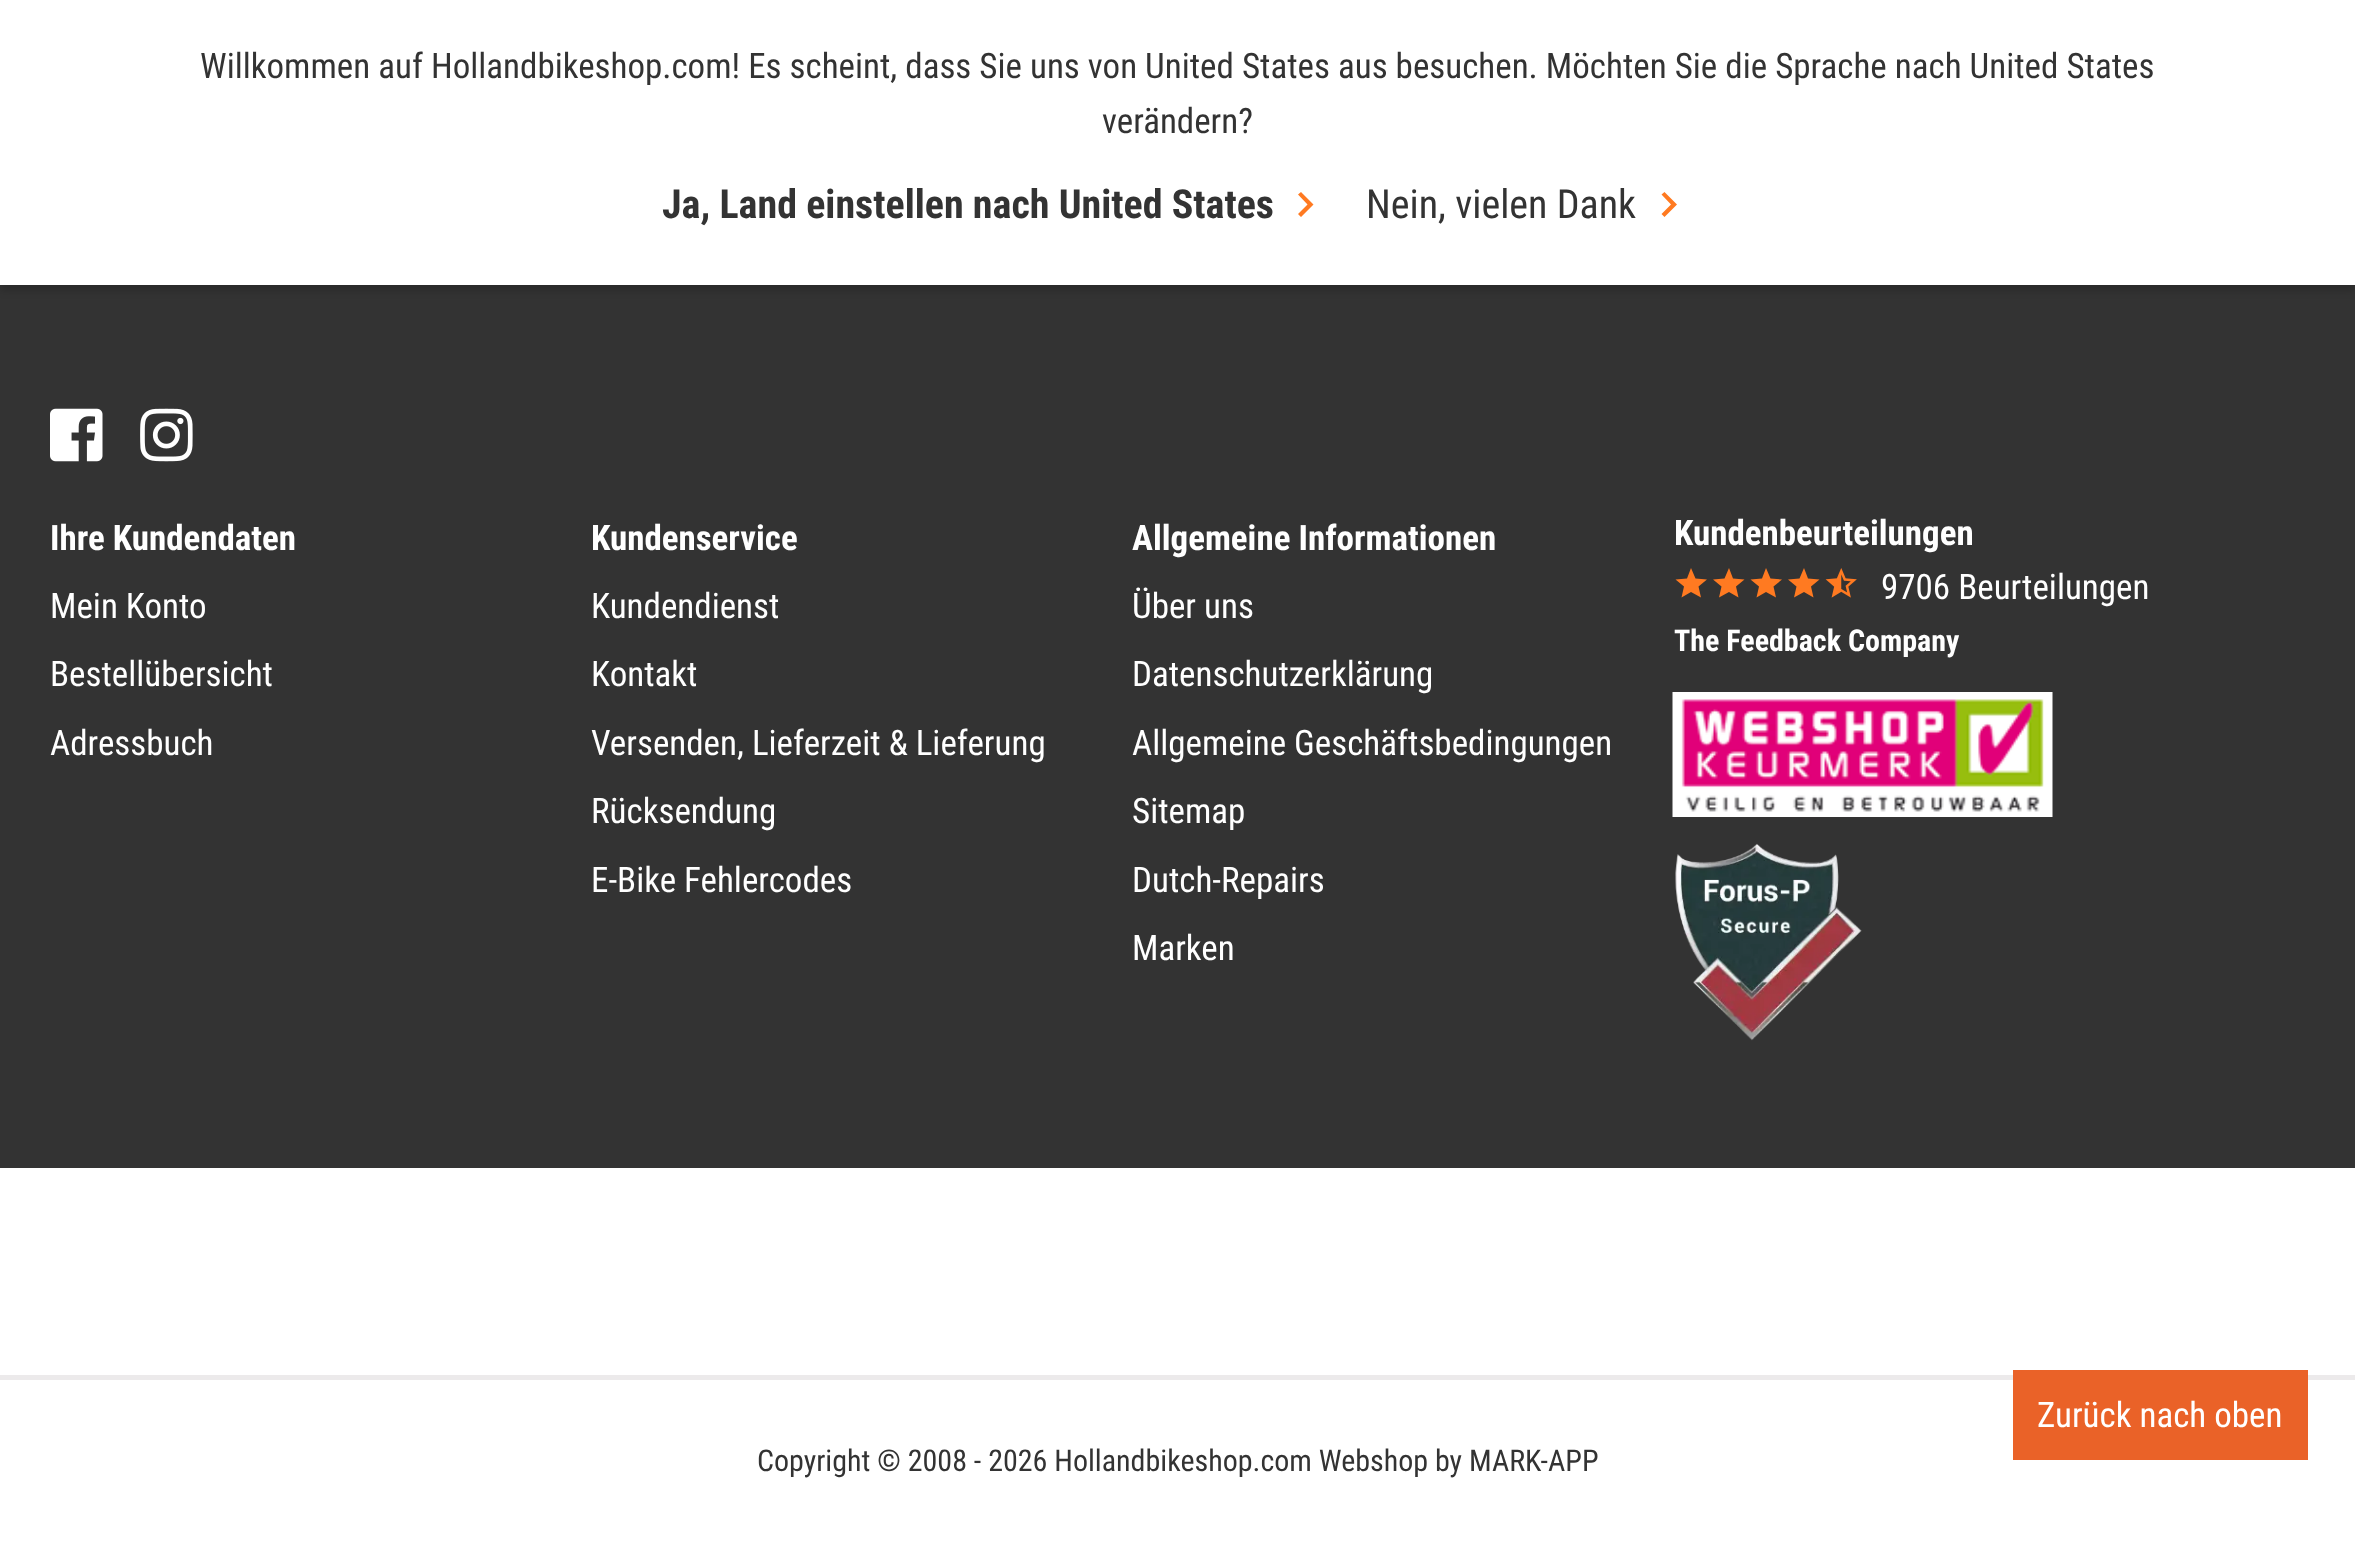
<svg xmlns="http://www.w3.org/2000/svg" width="2355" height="1542">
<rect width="100%" height="100%" fill="#fff"/>
<rect y="285" width="2355" height="883" fill="#333"/>
<rect y="5" width="2355" height="285" fill="#00000033" filter="blur(4px)"/>
<rect width="2355" height="285" fill="#fff"/>
<text x="200" y="78" style="font-family:Roboto Condensed;font-size:35px;fill:#333">Willkommen auf Hollandbikeshop.com! Es scheint, dass Sie uns von United States aus besuchen. Möchten Sie die Sprache nach United States</text>
<text x="1102" y="133" style="font-family:Roboto Condensed;font-size:35px;fill:#333">verändern?</text>
<text x="662" y="218" style="font-family:Roboto Condensed;font-size:40px;font-weight:bold;fill:#333">Ja, Land einstellen nach United States</text>
<path d="M1298 194.5l9.5 10l-9.5 9.5l3 3l12.5-12.5l-12.5-12.5z" fill="#ff7a21"/>
<text x="1366" y="218" style="font-family:Roboto Condensed;font-size:40px;fill:#333">Nein, vielen Dank</text>
<path d="M1661.5 194.5l9.5 10l-9.5 9.5l3 3l12.5-12.5l-12.5-12.5z" fill="#ff7a21"/>
<image x="50" y="408" width="53" height="54" href="media/1.png"/>
<image x="140" y="408" width="53" height="54" href="media/2.png"/>
<text x="50" y="550" style="font-family:Roboto Condensed;font-size:35px;font-weight:bold;fill:#fff">Ihre Kundendaten</text>
<text x="50" y="618" style="font-family:Roboto Condensed;font-size:35px;fill:#fff">Mein Konto</text>
<text x="50" y="686" style="font-family:Roboto Condensed;font-size:35px;fill:#fff">Bestellübersicht</text>
<text x="50" y="755" style="font-family:Roboto Condensed;font-size:35px;fill:#fff">Adressbuch</text>
<text x="591" y="550" style="font-family:Roboto Condensed;font-size:35px;font-weight:bold;fill:#fff">Kundenservice</text>
<text x="591" y="618" style="font-family:Roboto Condensed;font-size:35px;fill:#fff">Kundendienst</text>
<text x="591" y="686" style="font-family:Roboto Condensed;font-size:35px;fill:#fff">Kontakt</text>
<text x="591" y="755" style="font-family:Roboto Condensed;font-size:35px;fill:#fff">Versenden, Lieferzeit &amp; Lieferung</text>
<text x="591" y="823" style="font-family:Roboto Condensed;font-size:35px;fill:#fff">Rücksendung</text>
<text x="591" y="892" style="font-family:Roboto Condensed;font-size:35px;fill:#fff">E-Bike Fehlercodes</text>
<text x="1132" y="550" style="font-family:Roboto Condensed;font-size:35px;font-weight:bold;fill:#fff">Allgemeine Informationen</text>
<text x="1132" y="618" style="font-family:Roboto Condensed;font-size:35px;fill:#fff">Über uns</text>
<text x="1132" y="686" style="font-family:Roboto Condensed;font-size:35px;fill:#fff">Datenschutzerklärung</text>
<text x="1132" y="755" style="font-family:Roboto Condensed;font-size:35px;fill:#fff">Allgemeine Geschäftsbedingungen</text>
<text x="1132" y="823" style="font-family:Roboto Condensed;font-size:35px;fill:#fff">Sitemap</text>
<text x="1132" y="892" style="font-family:Roboto Condensed;font-size:35px;fill:#fff">Dutch-Repairs</text>
<text x="1132" y="960" style="font-family:Roboto Condensed;font-size:35px;fill:#fff">Marken</text>
<text x="1674" y="545" style="font-family:Roboto Condensed;font-size:35px;font-weight:bold;fill:#fff">Kundenbeurteilungen</text>
<path d="M1691 592l10 5.5l-2.5-11l8.5-7l-11.5-1l-4.5-10.5l-4 10.5l-11.5 1l8.5 7l-2.5 11z" fill="#ff7a21"/>
<path d="M1729 592l9.5 5.5l-2.5-11l8.5-7l-11.5-1l-4-10.5l-4.5 10.5l-11.5 1l8.5 7l-2.5 11z" fill="#ff7a21"/>
<path d="M1766 592l10 5.5l-2.5-11l8.5-7l-11.5-1l-4.5-10.5l-4 10.5l-11.5 1l8.5 7l-2.5 11z" fill="#ff7a21"/>
<path d="M1804 592l9.5 5.5l-2.5-11l8.5-7l-11.5-1l-4-10.5l-4.5 10.5l-11.5 1l8.5 7l-2.5 11z" fill="#ff7a21"/>
<image x="1825" y="568" width="32" height="30" href="media/3.png"/>
<text x="1881" y="599" style="font-family:Roboto Condensed;font-size:35px;fill:#fff">9706 Beurteilungen</text>
<text x="1674" y="651" style="font-family:Roboto Condensed;font-size:30px;font-weight:bold;fill:#fff">The Feedback Company</text>
<image x="1672" y="692" width="381" height="125" href="media/4.png"/>
<image x="1675" y="843" width="187" height="198" href="media/5.png"/>
<rect y="1375" width="2355" height="5" fill="#eceaeb"/>
<text x="757" y="1471" style="font-family:Roboto Condensed;font-size:30px;fill:#333">Copyright © 2008 - 2026 Hollandbikeshop.com Webshop by MARK-APP</text>
<rect x="2013" y="1370" width="295" height="90" fill="#ea6228"/>
<text x="2037" y="1427" style="font-family:Roboto Condensed;font-size:35px;fill:#fff">Zurück nach oben</text>
</svg>
